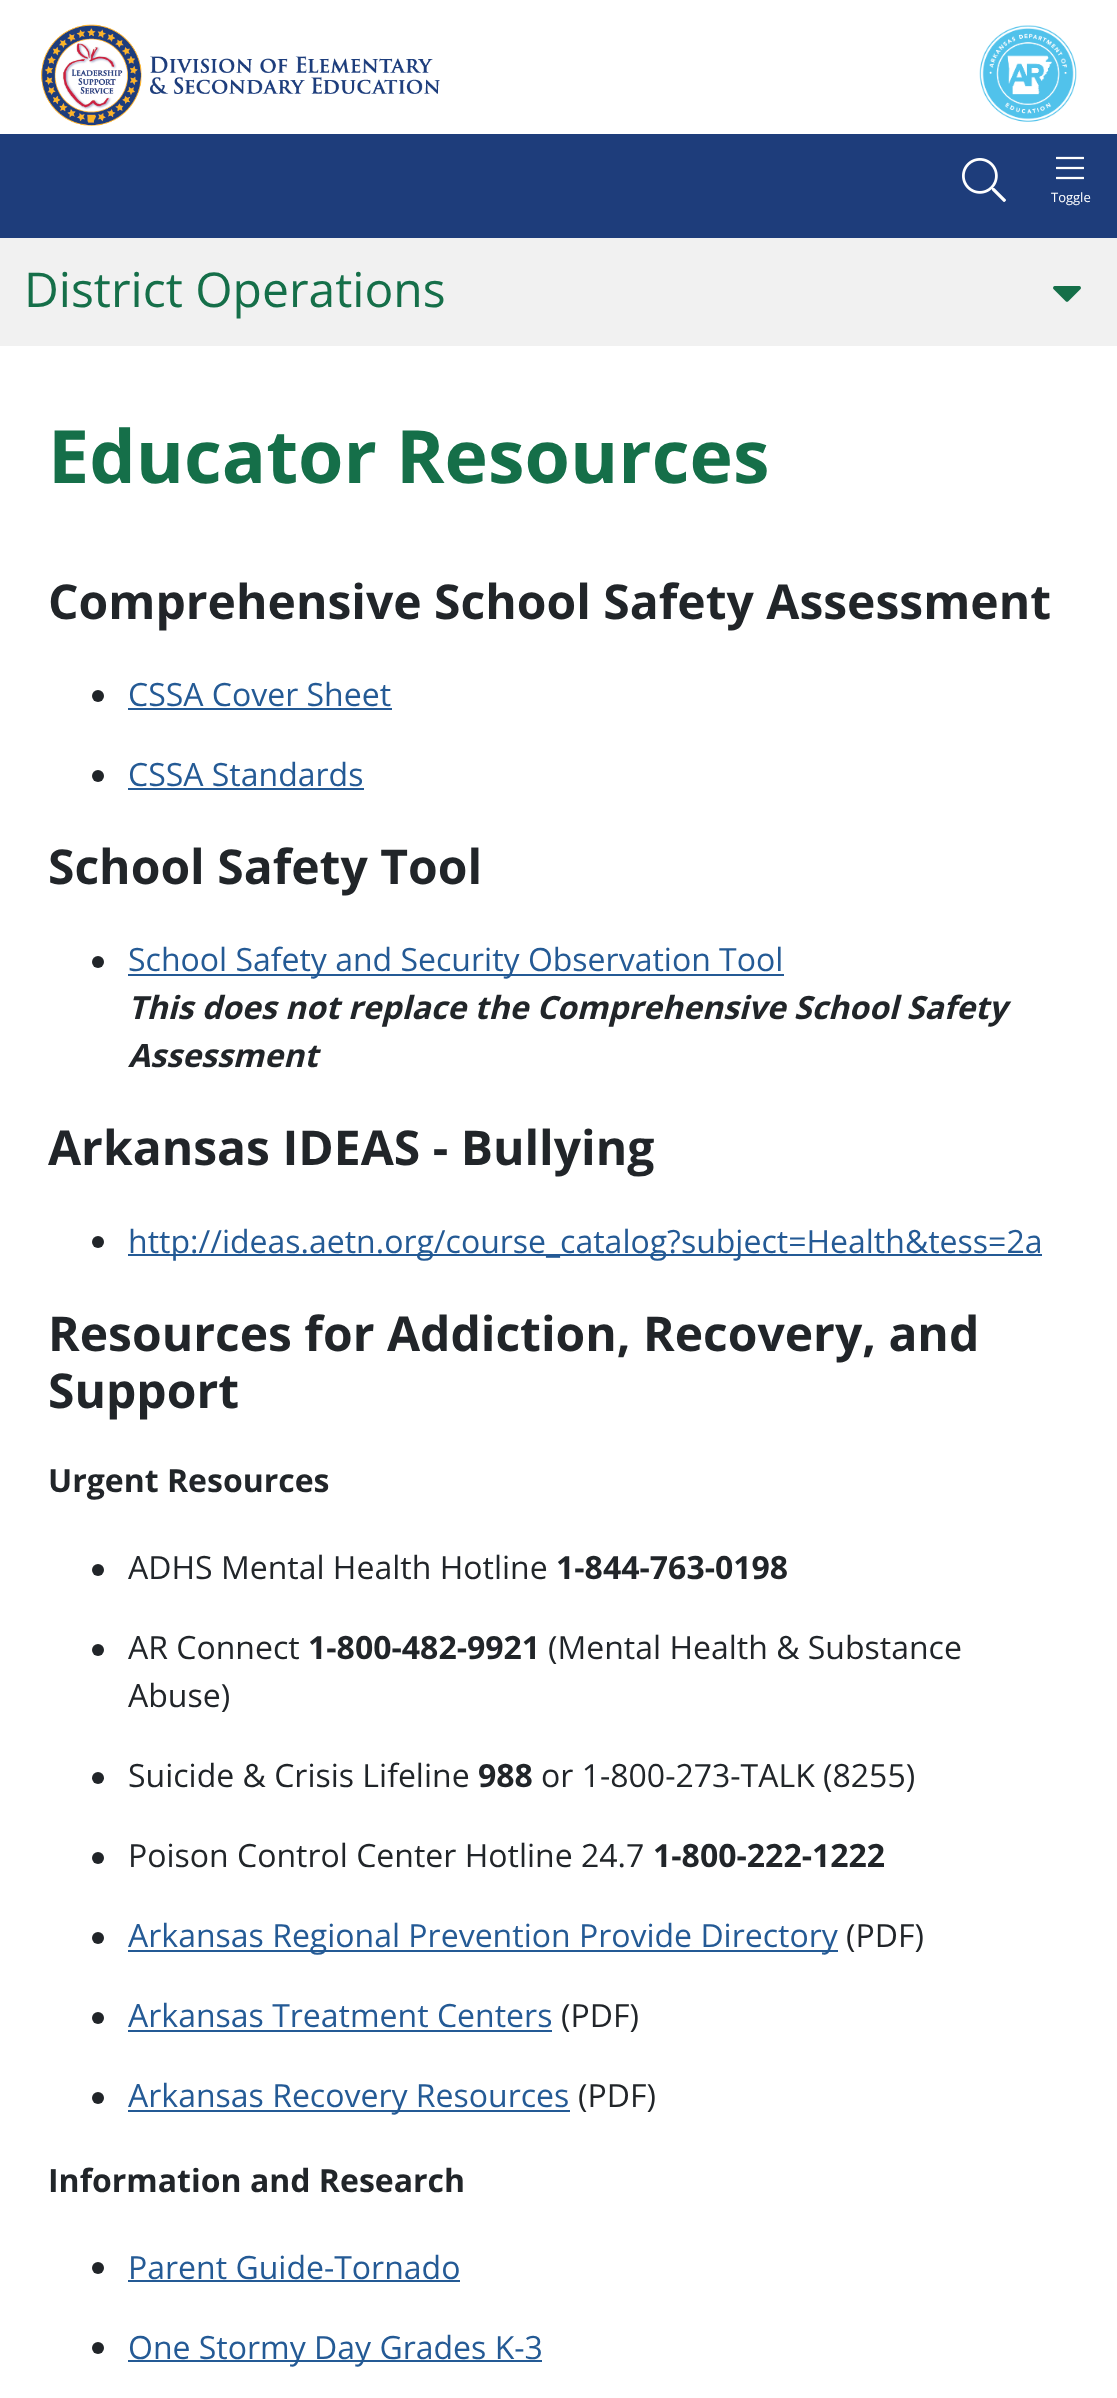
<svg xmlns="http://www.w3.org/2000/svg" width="1117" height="2398">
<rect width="100%" height="100%" fill="#fff"/>
<image x="41" y="24" width="399" height="102" href="media/1.png"/>
<image x="979" y="25" width="98" height="97" href="media/2.png"/>
<rect y="134" width="1117" height="104" fill="#1e3d7b"/>
<image x="962" y="158" width="44" height="44" href="media/3.png"/>
<image x="1056" y="156" width="28" height="24" href="media/4.png"/>
<text x="1051" y="202" style="font-family:Open Sans;font-size:13px;fill:#fff">Toggle</text>
<rect y="238" width="1117" height="108" fill="#f1f1f1"/>
<text x="24" y="307" style="font-family:Open Sans;font-size:48px;fill:#156f49">District Operations</text>
<image x="1053" y="286" width="28" height="16" href="media/5.png"/>
<text x="48" y="483" style="font-family:Open Sans;font-size:73.5px;font-weight:bold;fill:#156f49">Educator Resources</text>
<text x="48" y="619" style="font-family:Open Sans;font-size:48px;font-weight:bold;fill:#212529">Comprehensive School Safety Assessment</text>
<circle cx="98" cy="696" r="6" fill="#212529"/>
<text x="128" y="706" style="font-family:Open Sans;font-size:32px;fill:#245a95">CSSA Cover Sheet</text>
<rect x="128" y="708" width="264" height="2" fill="#245a95"/>
<circle cx="98" cy="776" r="6" fill="#212529"/>
<text x="128" y="786" style="font-family:Open Sans;font-size:32px;fill:#245a95">CSSA Standards</text>
<rect x="128" y="788" width="236" height="2" fill="#245a95"/>
<text x="48" y="884" style="font-family:Open Sans;font-size:48px;font-weight:bold;fill:#212529">School Safety Tool</text>
<circle cx="98" cy="962" r="6" fill="#212529"/>
<rect x="128" y="974" width="656" height="2" fill="#245a95"/>
<text x="128" y="971" style="font-family:Open Sans;font-size:32px;fill:#245a95">School Safety and Security Observation Tool</text>
<text x="128" y="1019" style="font-family:Open Sans;font-size:32px;font-weight:bold;font-style:italic;fill:#212529">This does not replace the Comprehensive School Safety</text>
<text x="128" y="1067" style="font-family:Open Sans;font-size:32px;font-weight:bold;font-style:italic;fill:#212529">Assessment</text>
<text x="48" y="1165" style="font-family:Open Sans;font-size:48px;font-weight:bold;fill:#212529">Arkansas IDEAS - Bullying</text>
<circle cx="98" cy="1242" r="6" fill="#212529"/>
<rect x="128" y="1254" width="914" height="2" fill="#245a95"/>
<text x="128" y="1253" style="font-family:Open Sans;font-size:32px;fill:#245a95">http://ideas.aetn.org/course_catalog?subject=Health&amp;tess=2a</text>
<text x="48" y="1351" style="font-family:Open Sans;font-size:48px;font-weight:bold;fill:#212529">Resources for Addiction, Recovery, and</text>
<text x="48" y="1408" style="font-family:Open Sans;font-size:48px;font-weight:bold;fill:#212529">Support</text>
<text x="48" y="1492" style="font-family:Open Sans;font-size:32px;font-weight:bold;fill:#212529">Urgent Resources</text>
<circle cx="98" cy="1570" r="6" fill="#212529"/>
<text x="128" y="1579" style="font-family:Open Sans;font-size:32px;fill:#212529">ADHS Mental Health Hotline</text>
<text x="556" y="1579" style="font-family:Open Sans;font-size:32px;font-weight:bold;fill:#212529">1-844-763-0198</text>
<circle cx="98" cy="1650" r="6" fill="#212529"/>
<text x="128" y="1659" style="font-family:Open Sans;font-size:32px;fill:#212529">AR Connect</text>
<text x="308" y="1659" style="font-family:Open Sans;font-size:32px;font-weight:bold;fill:#212529">1-800-482-9921</text>
<text x="548" y="1659" style="font-family:Open Sans;font-size:32px;fill:#212529">(Mental Health &amp; Substance</text>
<text x="128" y="1707" style="font-family:Open Sans;font-size:32px;fill:#212529">Abuse)</text>
<circle cx="98" cy="1778" r="6" fill="#212529"/>
<text x="128" y="1787" style="font-family:Open Sans;font-size:32px;fill:#212529">Suicide &amp; Crisis Lifeline</text>
<text x="478" y="1787" style="font-family:Open Sans;font-size:32px;font-weight:bold;fill:#212529">988</text>
<text x="541" y="1787" style="font-family:Open Sans;font-size:32px;fill:#212529">or 1-800-273-TALK (8255)</text>
<circle cx="98" cy="1858" r="6" fill="#212529"/>
<text x="128" y="1867" style="font-family:Open Sans;font-size:32px;fill:#212529">Poison Control Center Hotline 24.7</text>
<text x="653" y="1867" style="font-family:Open Sans;font-size:32px;font-weight:bold;fill:#212529">1-800-222-1222</text>
<circle cx="98" cy="1938" r="6" fill="#212529"/>
<rect x="128" y="1950" width="710" height="2" fill="#245a95"/>
<text x="128" y="1947" style="font-family:Open Sans;font-size:32px;fill:#245a95">Arkansas Regional Prevention Provide Directory</text>
<text x="846" y="1947" style="font-family:Open Sans;font-size:32px;fill:#212529">(PDF)</text>
<circle cx="98" cy="2018" r="6" fill="#212529"/>
<text x="128" y="2027" style="font-family:Open Sans;font-size:32px;fill:#245a95">Arkansas Treatment Centers</text>
<rect x="128" y="2030" width="424" height="2" fill="#245a95"/>
<text x="561" y="2027" style="font-family:Open Sans;font-size:32px;fill:#212529">(PDF)</text>
<circle cx="98" cy="2098" r="6" fill="#212529"/>
<rect x="128" y="2110" width="442" height="2" fill="#245a95"/>
<text x="128" y="2107" style="font-family:Open Sans;font-size:32px;fill:#245a95">Arkansas Recovery Resources</text>
<text x="578" y="2107" style="font-family:Open Sans;font-size:32px;fill:#212529">(PDF)</text>
<text x="48" y="2192" style="font-family:Open Sans;font-size:32px;font-weight:bold;fill:#212529">Information and Research</text>
<circle cx="98" cy="2268" r="6" fill="#212529"/>
<text x="128" y="2279" style="font-family:Open Sans;font-size:32px;fill:#245a95">Parent Guide-Tornado</text>
<rect x="128" y="2280" width="332" height="2" fill="#245a95"/>
<circle cx="98" cy="2348" r="6" fill="#212529"/>
<rect x="128" y="2360" width="414" height="2" fill="#245a95"/>
<text x="128" y="2359" style="font-family:Open Sans;font-size:32px;fill:#245a95">One Stormy Day Grades K-3</text>
</svg>
